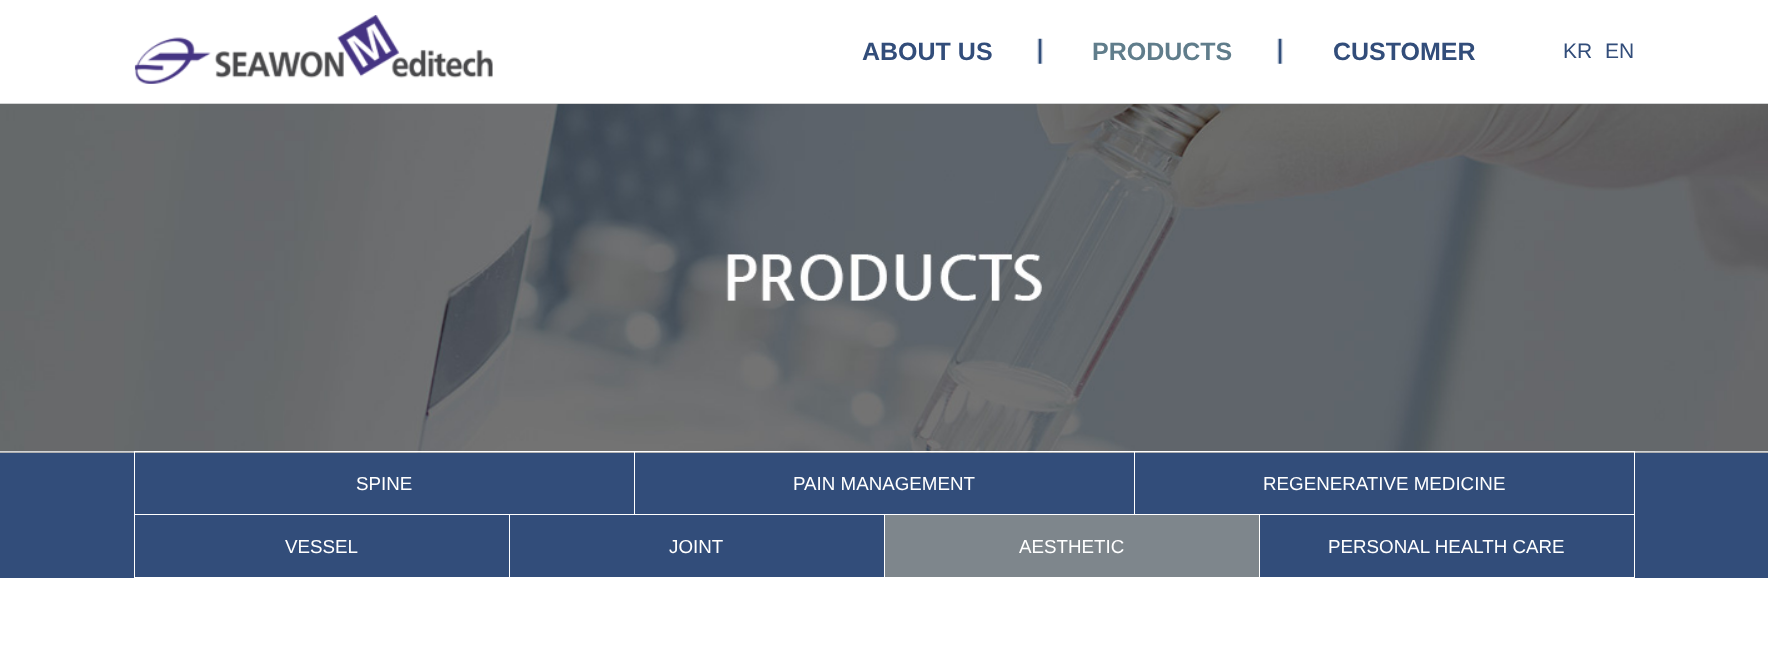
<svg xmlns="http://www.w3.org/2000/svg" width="1768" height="661">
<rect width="100%" height="100%" fill="#fff"/>
<image x="134" y="15" width="359" height="69" href="media/1.png"/>
<image x="1037" y="38" width="6" height="26" href="media/2.png"/>
<text x="862" y="60" style="font-family:Liberation Sans;font-size:25px;font-weight:bold;fill:#324d7a">ABOUT US</text>
<image x="1277" y="38" width="6" height="26" href="media/3.png"/>
<text x="1092" y="60" style="font-family:Liberation Sans;font-size:25px;font-weight:bold;fill:#607d8b">PRODUCTS</text>
<text x="1333" y="60" style="font-family:Liberation Sans;font-size:25px;font-weight:bold;fill:#324d7a">CUSTOMER</text>
<text x="1563" y="58" style="font-family:Liberation Sans;font-size:21px;fill:#324d7a">KR</text>
<text x="1605" y="58" style="font-family:Liberation Sans;font-size:21px;fill:#324d7a">EN</text>
<rect y="452" width="1768" height="1" fill="#f6f6f6"/>
<image x="0" y="104" width="1768" height="349" href="media/4.png"/>
<rect y="103" width="1768" height="1" fill="#d2d3d4"/>
<rect y="451" width="1768" height="1" fill="#d2d3d4"/>
<rect y="453" width="1768" height="125" fill="#324d7a"/>
<rect x="134.5" y="451.5" width="500" height="63" fill="none" stroke="#fff"/>
<text x="356" y="490" style="font-family:Liberation Sans;font-size:18.75px;fill:#fff">SPINE</text>
<rect x="634.5" y="451.5" width="500" height="63" fill="none" stroke="#fff"/>
<text x="793" y="490" style="font-family:Liberation Sans;font-size:18.75px;fill:#fff">PAIN MANAGEMENT</text>
<rect x="1134.5" y="451.5" width="500" height="63" fill="none" stroke="#fff"/>
<text x="1263" y="490" style="font-family:Liberation Sans;font-size:18.75px;fill:#fff">REGENERATIVE MEDICINE</text>
<rect x="134.5" y="514.5" width="375" height="63" fill="none" stroke="#fff"/>
<text x="285" y="553" style="font-family:Liberation Sans;font-size:18.75px;fill:#fff">VESSEL</text>
<rect x="509.5" y="514.5" width="375" height="63" fill="none" stroke="#fff"/>
<text x="669" y="553" style="font-family:Liberation Sans;font-size:18.75px;fill:#fff">JOINT</text>
<rect x="884.5" y="514.5" width="375" height="63" fill="#7e868c" stroke="#fff"/>
<text x="1019" y="553" style="font-family:Liberation Sans;font-size:18.75px;fill:#fff">AESTHETIC</text>
<rect x="1259.5" y="514.5" width="375" height="63" fill="none" stroke="#fff"/>
<text x="1328" y="553" style="font-family:Liberation Sans;font-size:18.75px;fill:#fff">PERSONAL HEALTH CARE</text>
</svg>
